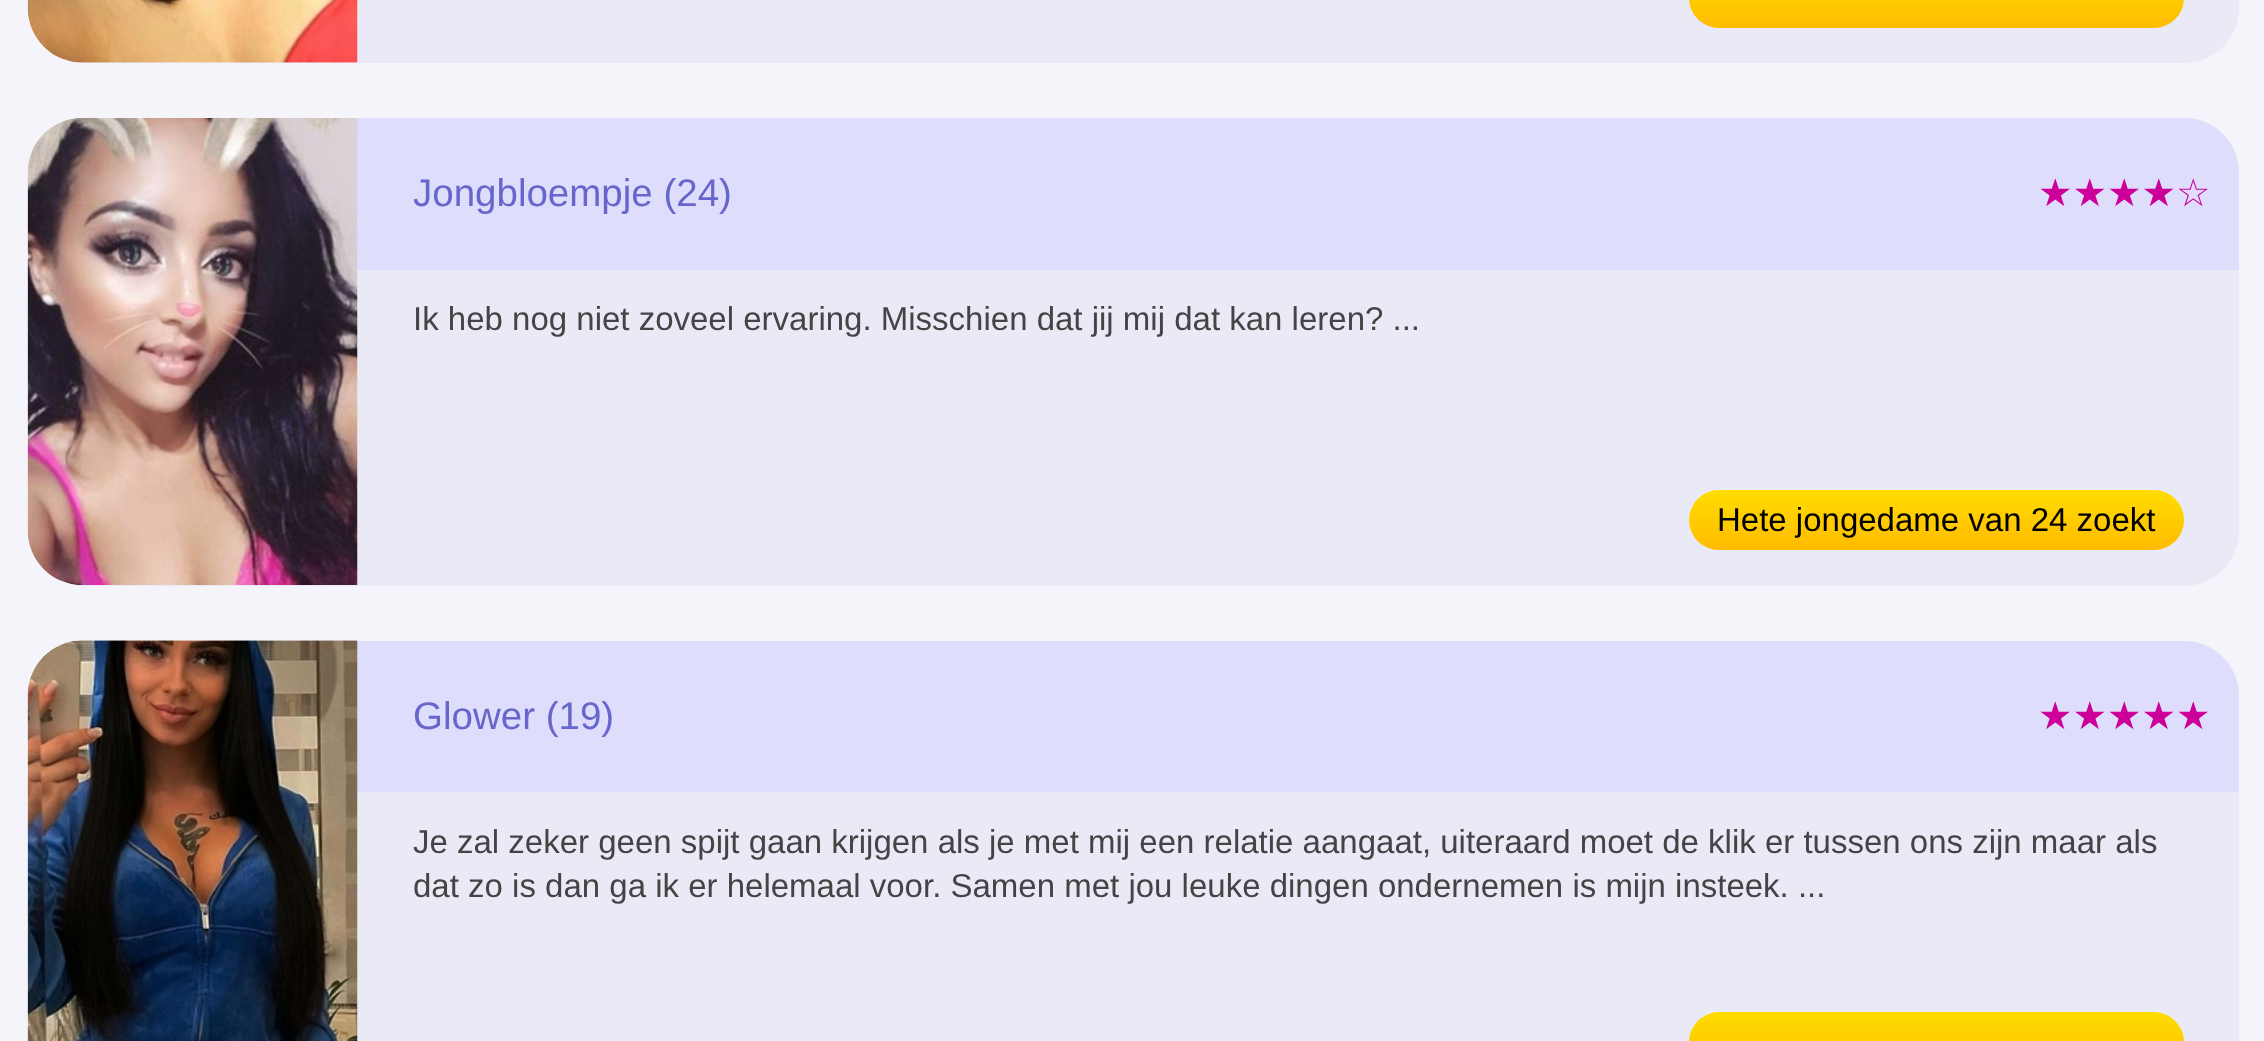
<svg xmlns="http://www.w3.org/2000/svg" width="2264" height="1041">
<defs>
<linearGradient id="g1" gradientUnits="userSpaceOnUse" x1="1936" y1="28" x2="1936" y2="-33"><stop offset="0" stop-color="#fb0"/><stop offset="1" stop-color="#fd0"/></linearGradient>
<linearGradient id="g2" gradientUnits="userSpaceOnUse" x1="1936" y1="550" x2="1936" y2="490"><stop offset="0" stop-color="#fb0"/><stop offset="1" stop-color="#fd0"/></linearGradient>
<linearGradient id="g3" gradientUnits="userSpaceOnUse" x1="1936" y1="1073" x2="1936" y2="1012"><stop offset="0" stop-color="#fb0"/><stop offset="1" stop-color="#fd0"/></linearGradient>
</defs>
<rect width="100%" height="100%" fill="#f4f4fa"/>
<rect x="28" y="-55" width="2211" height="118" rx="55" fill="#eaeaf6"/>
<image x="27" y="0" width="331" height="63" href="media/1.png"/>
<rect x="1689" y="-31" width="495" height="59" rx="30.5" fill="url(#g1)"/>
<rect x="28" y="118" width="2211" height="468" rx="55" fill="#eaeaf6"/>
<path d="M83 118h2101c30.5 0 55 24.5 55 55v97h-2211v-97c0-30.5 24.5-55 55-55z" fill="#dedefc"/>
<image x="27" y="118" width="331" height="467" href="media/2.png"/>
<text x="413" y="206" style="font-family:Liberation Sans;font-size:38.5px;fill:#66c">Jongbloempje (24)</text>
<text x="2038" y="206" style="font-family:DejaVu Sans;font-size:38.5px;fill:#c09">★★★★☆</text>
<text x="413" y="330" style="font-family:Liberation Sans;font-size:33px;fill:#444">Ik heb nog niet zoveel ervaring. Misschien dat jij mij dat kan leren? ...</text>
<rect x="1689" y="490" width="495" height="60" rx="30" fill="url(#g2)"/>
<text x="1717" y="531" style="font-family:Liberation Sans;font-size:33px;fill:#000">Hete jongedame van 24 zoekt</text>
<rect x="28" y="641" width="2211" height="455" rx="55" fill="#eaeaf6"/>
<path d="M83 641h2101c30.5 0 55 24.5 55 55v96h-2211v-96c0-30.5 24.5-55 55-55z" fill="#dedefc"/>
<image x="27" y="640" width="331" height="401" href="media/3.png"/>
<text x="413" y="729" style="font-family:Liberation Sans;font-size:38.5px;fill:#66c">Glower (19)</text>
<text x="2038" y="729" style="font-family:DejaVu Sans;font-size:38.5px;fill:#c09">★★★★★</text>
<text x="413" y="853" style="font-family:Liberation Sans;font-size:33px;fill:#444">Je zal zeker geen spijt gaan krijgen als je met mij een relatie aangaat, uiteraard moet de klik er tussen ons zijn maar als</text>
<text x="413" y="897" style="font-family:Liberation Sans;font-size:33px;fill:#444">dat zo is dan ga ik er helemaal voor. Samen met jou leuke dingen ondernemen is mijn insteek. ...</text>
<rect x="1689" y="1012" width="495" height="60" rx="30.5" fill="url(#g3)"/>
</svg>
